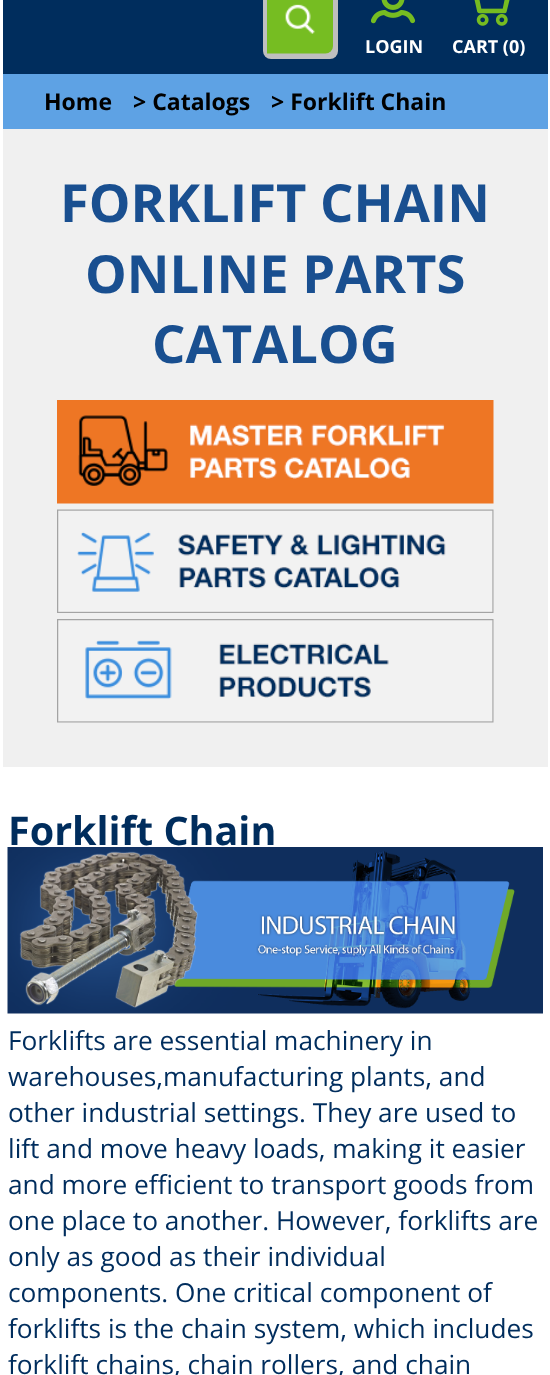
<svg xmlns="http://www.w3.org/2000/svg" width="550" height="1375">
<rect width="100%" height="100%" fill="#fff"/>
<rect x="3" width="545" height="74" fill="#002d5d"/>
<rect x="263" y="-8" width="75" height="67" rx="8" fill="#bfbfbf"/>
<image x="267" y="0" width="66" height="54" href="media/1.png"/>
<image x="371" y="0" width="45" height="24" href="media/2.png"/>
<text x="365" y="53" style="font-family:Open Sans;font-size:18px;font-weight:bold;fill:#fff">LOGIN</text>
<image x="474" y="0" width="36" height="26" href="media/3.png"/>
<text x="452" y="53" style="font-family:Open Sans;font-size:18px;font-weight:bold;fill:#fff">CART (0)</text>
<rect x="3" y="74" width="545" height="55" fill="#5ea2e4"/>
<text x="44" y="110" style="font-family:Open Sans;font-size:23px;font-weight:bold;fill:#000">Home</text>
<text x="133" y="110" style="font-family:Open Sans;font-size:23px;font-weight:bold;fill:#000">&gt; Catalogs</text>
<text x="271" y="110" style="font-family:Open Sans;font-size:23px;font-weight:bold;fill:#000">&gt; Forklift Chain</text>
<rect x="3" y="129" width="545" height="638" fill="#f0f0f0"/>
<text x="60" y="222" style="font-family:Open Sans;font-size:52.5px;font-weight:bold;fill:#194f90">FORKLIFT CHAIN</text>
<text x="85" y="293" style="font-family:Open Sans;font-size:52.5px;font-weight:bold;fill:#194f90">ONLINE PARTS</text>
<text x="152" y="363" style="font-family:Open Sans;font-size:52.5px;font-weight:bold;fill:#194f90">CATALOG</text>
<image x="57" y="400" width="437" height="104" href="media/4.png"/>
<image x="57" y="509" width="437" height="104" href="media/5.png"/>
<image x="57" y="619" width="437" height="104" href="media/6.png"/>
<text x="8" y="845" style="font-family:Open Sans;font-size:39.5px;font-weight:bold;fill:#002d5d">Forklift Chain</text>
<image x="7" y="847" width="536" height="167" href="media/7.png"/>
<text x="8" y="1050" style="font-family:Open Sans;font-size:26.25px;fill:#002d5d">Forklifts are essential machinery in</text>
<text x="8" y="1086" style="font-family:Open Sans;font-size:26.25px;fill:#002d5d">warehouses,manufacturing plants, and</text>
<text x="8" y="1122" style="font-family:Open Sans;font-size:26.25px;fill:#002d5d">other industrial settings. They are used to</text>
<text x="8" y="1158" style="font-family:Open Sans;font-size:26.25px;fill:#002d5d">lift and move heavy loads, making it easier</text>
<text x="8" y="1194" style="font-family:Open Sans;font-size:26.25px;fill:#002d5d">and more efficient to transport goods from</text>
<text x="8" y="1230" style="font-family:Open Sans;font-size:26.25px;fill:#002d5d">one place to another. However, forklifts are</text>
<text x="8" y="1266" style="font-family:Open Sans;font-size:26.25px;fill:#002d5d">only as good as their individual</text>
<text x="8" y="1302" style="font-family:Open Sans;font-size:26.25px;fill:#002d5d">components. One critical component of</text>
<text x="8" y="1338" style="font-family:Open Sans;font-size:26.25px;fill:#002d5d">forklifts is the chain system, which includes</text>
<text x="8" y="1374" style="font-family:Open Sans;font-size:26.25px;fill:#002d5d">forklift chains, chain rollers, and chain</text>
</svg>
